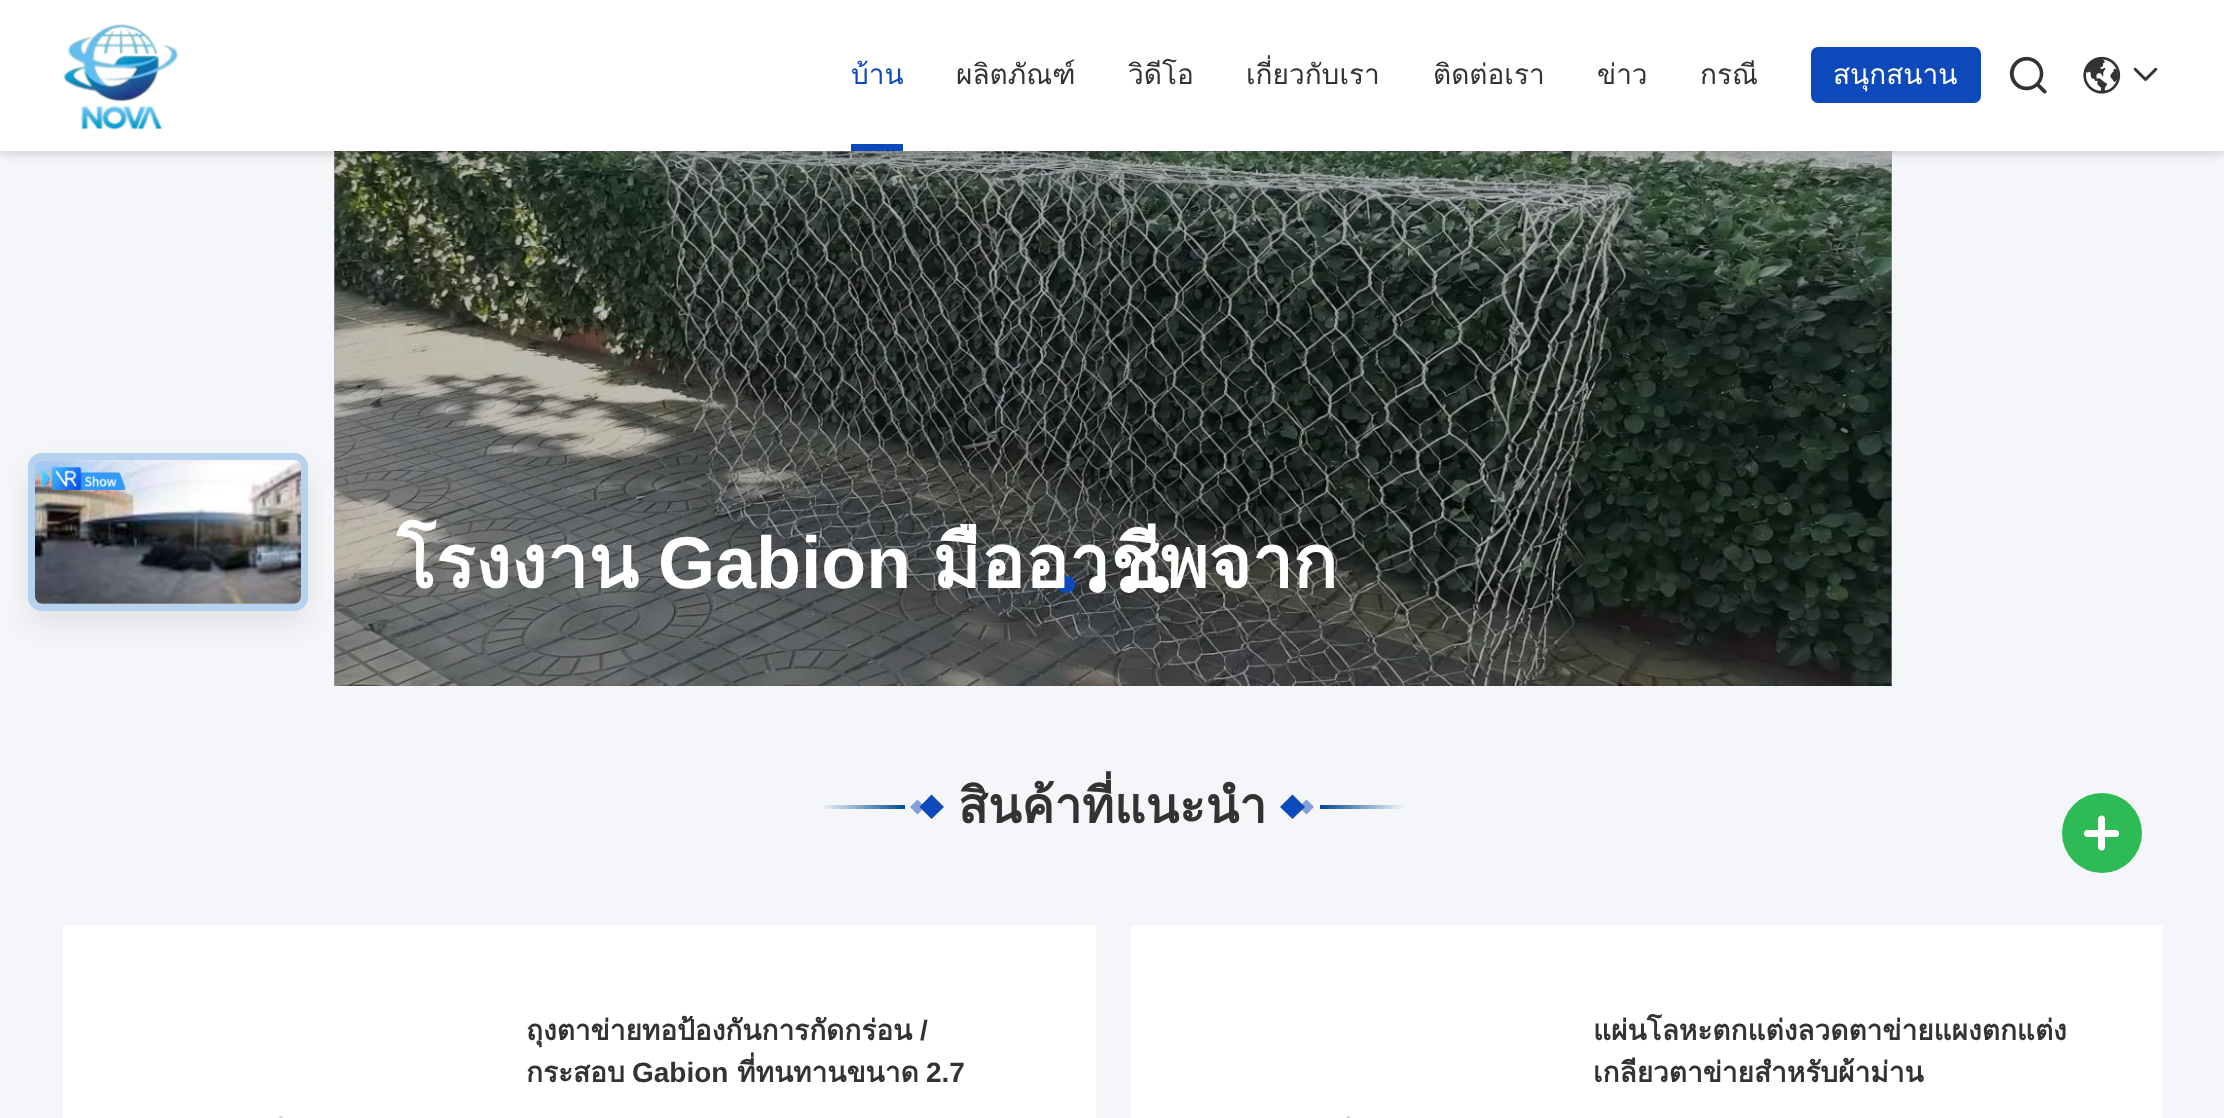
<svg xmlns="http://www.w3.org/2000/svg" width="2224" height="1118">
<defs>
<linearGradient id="g1" gradientUnits="userSpaceOnUse" x1="905" y1="807" x2="821" y2="807"><stop offset="0" stop-color="#004796"/><stop offset="1" stop-color="#f4f6f9"/></linearGradient>
<linearGradient id="g2" gradientUnits="userSpaceOnUse" x1="1320" y1="807" x2="1404" y2="807"><stop offset="0" stop-color="#004796"/><stop offset="1" stop-color="#f4f6f9"/></linearGradient>
<clipPath id="clip1"><rect x="527" y="1010" width="476" height="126"/></clipPath>
</defs>
<rect width="100%" height="100%" fill="#f4f6f9"/>
<rect x="334" y="151" width="1558" height="535" fill="#b7b9bb"/>
<image x="334" y="151" width="1558" height="535" href="media/7.png"/>
<rect y="4" width="2224" height="150" fill="#00000026" filter="blur(5px)"/>
<rect width="2224" height="151" fill="#fff"/>
<image x="63" y="24" width="115" height="106" href="media/1.png"/>
<text x="851" y="84" style="font-family:Loma;font-size:28px;fill:#0e49bb">บ้าน</text>
<rect x="851" y="144" width="52" height="7" fill="#0e49bb"/>
<text x="956" y="84" style="font-family:Loma;font-size:28px;fill:#333">ผลิตภัณฑ์</text>
<text x="1128" y="84" style="font-family:Loma;font-size:28px;fill:#333">วิดีโอ</text>
<text x="1246" y="84" style="font-family:Loma;font-size:28px;fill:#333">เกี่ยวกับเรา</text>
<text x="1433" y="84" style="font-family:Loma;font-size:28px;fill:#333">ติดต่อเรา</text>
<text x="1597" y="84" style="font-family:Loma;font-size:28px;fill:#333">ข่าว</text>
<text x="1700" y="84" style="font-family:Loma;font-size:28px;fill:#333">กรณี</text>
<rect x="1811" y="47" width="170" height="56" rx="7" fill="#0e49bb"/>
<text x="1833" y="84" style="font-family:Loma;font-size:28px;fill:#fff">สนุกสนาน</text>
<image x="2009" y="56" width="38" height="38" href="media/2.png"/>
<image x="2083" y="56" width="38" height="38" href="media/3.png"/>
<image x="2133" y="67" width="25" height="14" href="media/4.png"/>
<rect x="28" y="467" width="280" height="158" rx="14" fill="#00000014" filter="blur(14px)"/>
<rect x="28" y="453" width="280" height="158" rx="14" fill="#eee"/>
<rect x="31.5" y="456.5" width="273" height="151" rx="10.5" fill="none" stroke="#0478ed3d" stroke-width="7"/>
<rect x="35" y="460" width="266" height="144" rx="7" fill="#eee"/>
<image x="35" y="460" width="266" height="144" href="media/5.png"/>
<image x="42" y="467" width="84" height="23" href="media/6.png"/>
<text x="396" y="588" style="font-family:Loma;font-size:73.5px;font-weight:bold;fill:#fff">โรงงาน</text>
<text x="658" y="588" style="font-family:Liberation Sans;font-size:73.5px;font-weight:bold;fill:#fff">Gabion</text>
<rect x="1057" y="576" width="18" height="17" rx="8.5" fill="#0e49bb"/>
<circle cx="1097.5" cy="584.5" r="8.5" fill="#fff"/>
<rect x="1120" y="576" width="18" height="17" rx="8.5" fill="#fff"/>
<circle cx="1160.5" cy="584.5" r="8.5" fill="#fff"/>
<text x="932" y="588" style="font-family:Loma;font-size:73.5px;font-weight:bold;fill:#fff">มืออาชีพจาก</text>
<rect x="821" y="805" width="84" height="4" fill="url(#g1)"/>
<path d="M917.5 799.5l7.5 7.5l-7.5 7.5l-7.5-7.5z" fill="#81a0da"/>
<text x="958" y="823" style="font-family:Loma;font-size:49px;font-weight:bold;fill:#333">สินค้าที่แนะนํา</text>
<path d="M931.5 794.5l12.5 12.5l-12.5 12l-12-12z" fill="#0e49bb"/>
<path d="M1292.5 794.5l12.5 12.5l-12.5 12l-12.5-12z" fill="#0e49bb"/>
<path d="M1306.5 799.5l7.5 7.5l-7.5 7.5l-7.5-7.5z" fill="#0e49bb80"/>
<rect x="1320" y="805" width="84" height="4" fill="url(#g2)"/>
<rect x="63" y="926" width="1033" height="192" fill="#fff"/>
<g clip-path="url(#clip1)">
<text x="526" y="1040" style="font-family:Loma;font-size:28px;font-weight:bold;fill:#333">ถุงตาข่ายทอป้องกันการกัดกร่อน</text>
</g>
<text x="920" y="1040" style="font-family:Liberation Sans;font-size:28px;font-weight:bold;fill:#333">/</text>
<text x="526" y="1082" style="font-family:Loma;font-size:28px;font-weight:bold;fill:#333">กระสอบ</text>
<text x="632" y="1082" style="font-family:Liberation Sans;font-size:28px;font-weight:bold;fill:#333">Gabion</text>
<text x="737" y="1082" style="font-family:Loma;font-size:28px;font-weight:bold;fill:#333">ที่ทนทานขนาด</text>
<text x="926" y="1082" style="font-family:Liberation Sans;font-size:28px;font-weight:bold;fill:#333">2.7</text>
<image x="278" y="1116" width="6" height="2" href="media/8.png"/>
<rect x="1131" y="926" width="1032" height="192" fill="#fff"/>
<text x="1593" y="1040" style="font-family:Loma;font-size:28px;font-weight:bold;fill:#333">แผ่นโลหะตกแต่งลวดตาข่ายแผงตกแต่ง</text>
<text x="1593" y="1082" style="font-family:Loma;font-size:28px;font-weight:bold;fill:#333">เกลียวตาข่ายสำหรับผ้าม่าน</text>
<image x="1345" y="1116" width="7" height="2" href="media/9.png"/>
<circle cx="2102" cy="833" r="40" fill="#2ebb55"/>
<rect x="2084" y="830" width="35" height="7" rx="3.5" fill="#fff"/>
<path d="M2105 819v28c0 2-1.5 3.5-3 3.5c-2 0-4-1.5-4-3.5v-28c0-2 2-3.5 4-3.5c1.5 0 3 1.5 3 3.5z" fill="#fff"/>
</svg>
